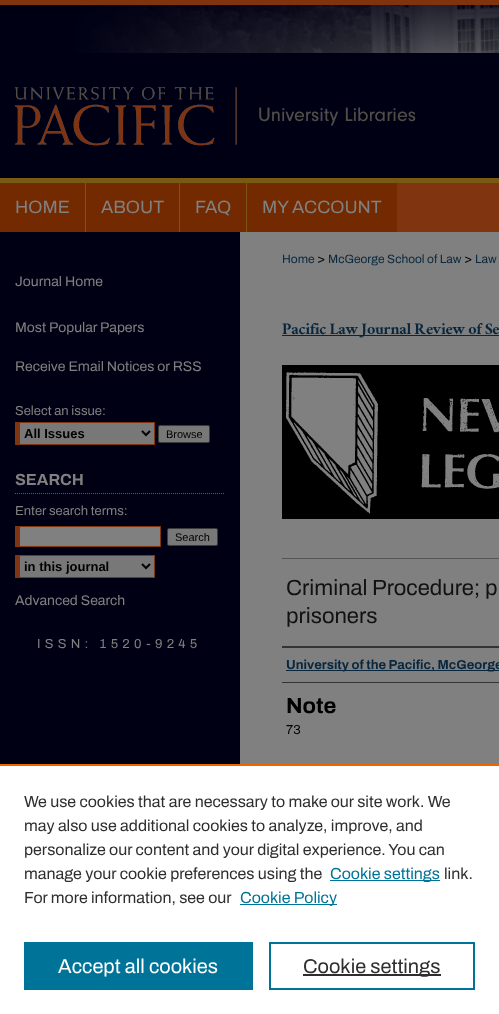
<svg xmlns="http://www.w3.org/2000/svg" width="499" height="1014">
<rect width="100%" height="100%" fill="#808080"/>
<image x="0" y="0" width="499" height="183" href="media/1.png"/>
<rect x="397" y="183" width="102" height="49" fill="#80340f"/>
<rect y="183" width="85" height="49" fill="#732a00"/>
<rect x="85" y="183" width="1" height="49" fill="#7a5611"/>
<text x="15" y="213" style="font-family:Archivo;font-size:18px;fill:#808080">HOME</text>
<rect x="86" y="183" width="93" height="49" fill="#732a00"/>
<rect x="179" y="183" width="1" height="49" fill="#7a5611"/>
<text x="101" y="213" style="font-family:Archivo;font-size:18px;fill:#808080">ABOUT</text>
<rect x="180" y="183" width="66" height="49" fill="#732a00"/>
<rect x="246" y="183" width="1" height="49" fill="#7a5611"/>
<text x="195" y="213" style="font-family:Archivo;font-size:18px;fill:#808080">FAQ</text>
<rect x="247" y="183" width="150" height="49" fill="#732a00"/>
<text x="262" y="213" style="font-family:Archivo;font-size:18px;fill:#808080">MY ACCOUNT</text>
<rect y="232" width="240" height="532" fill="#000014"/>
<text x="15" y="286" style="font-family:Archivo;font-size:14px;fill:#808080">Journal Home</text>
<text x="15" y="332" style="font-family:Archivo;font-size:14px;fill:#808080">Most Popular Papers</text>
<text x="15" y="371" style="font-family:Archivo;font-size:14px;fill:#808080">Receive Email Notices or RSS</text>
<text x="15" y="415" style="font-family:Archivo;font-size:13px;fill:#808080">Select an issue:</text>
<rect x="20" y="423" width="134" height="21" fill="#787878"/>
<rect x="15" y="422" width="140" height="1" fill="#80340f"/>
<rect x="154" y="422" width="1" height="23" fill="#80340f"/>
<rect x="15" y="444" width="140" height="1" fill="#80340f"/>
<rect x="15" y="422" width="5" height="23" fill="#80340f"/>
<path d="M142 431l4 4l4-4" fill="none" stroke="#000" stroke-width="2"/>
<text x="24" y="438" style="font-family:Liberation Sans;font-size:13px;font-weight:bold;fill:#000">All Issues</text>
<rect x="158.5" y="425.5" width="51" height="17" rx="1.5" fill="#787878" stroke="#3b3b3b"/>
<text x="166" y="438" style="font-family:Liberation Sans;font-size:11px;fill:#000">Browse</text>
<path d="M15 493.5h210" fill="none" stroke="#7a5917" stroke-dasharray="1 1"/>
<text x="15" y="485" style="font-family:Archivo;font-size:16px;font-weight:bold;fill:#808080">SEARCH</text>
<text x="15" y="515" style="font-family:Archivo;font-size:13px;fill:#808080">Enter search terms:</text>
<rect x="20" y="527" width="140" height="19" fill="#808080"/>
<rect x="15" y="526" width="146" height="1" fill="#80340f"/>
<rect x="160" y="526" width="1" height="21" fill="#80340f"/>
<rect x="15" y="546" width="146" height="1" fill="#80340f"/>
<rect x="15" y="526" width="5" height="21" fill="#80340f"/>
<rect x="167.5" y="528.5" width="50" height="17" rx="1.5" fill="#787878" stroke="#3b3b3b"/>
<text x="175" y="541" style="font-family:Liberation Sans;font-size:11px;fill:#000">Search</text>
<rect x="20" y="556" width="134" height="21" fill="#787878"/>
<rect x="15" y="555" width="140" height="1" fill="#80340f"/>
<rect x="154" y="555" width="1" height="23" fill="#80340f"/>
<rect x="15" y="577" width="140" height="1" fill="#80340f"/>
<rect x="15" y="555" width="5" height="23" fill="#80340f"/>
<path d="M142 564l4 4l4-4" fill="none" stroke="#000" stroke-width="2"/>
<text x="24" y="571" style="font-family:Liberation Sans;font-size:13px;font-weight:bold;fill:#000">in this journal</text>
<text x="15" y="605" style="font-family:Archivo;font-size:14px;fill:#808080">Advanced Search</text>
<text x="37" y="648" style="font-family:Archivo;font-size:13px;letter-spacing:4.25px;fill:#808080">ISSN: 1520-9245</text>
<text x="282" y="263" style="font-family:Archivo;font-size:12px;fill:#08273e">Home</text>
<text x="317" y="263" style="font-family:Archivo;font-size:13px;fill:#000">&gt;</text>
<text x="328" y="263" style="font-family:Archivo;font-size:12px;fill:#08273e">McGeorge School of Law</text>
<text x="464" y="263" style="font-family:Archivo;font-size:13px;fill:#000">&gt;</text>
<text x="475" y="263" style="font-family:Archivo;font-size:12px;fill:#08273e">Law</text>
<rect x="282" y="335" width="217" height="1" fill="#08273e"/>
<text x="282" y="334" style="font-family:Ramaraja;font-size:18px;fill:#08273e">Pacific Law Journal Review of Se</text>
<image x="282" y="365" width="217" height="154" href="media/2.png"/>
<rect x="282" y="558" width="217" height="1" fill="#555"/>
<text x="286" y="595" style="font-family:Archivo;font-size:22px;fill:#111">Criminal Procedure; p</text>
<text x="286" y="623" style="font-family:Archivo;font-size:22px;fill:#111">prisoners</text>
<rect x="282" y="646" width="217" height="2" fill="#333"/>
<rect x="282" y="682" width="217" height="1" fill="#333"/>
<rect x="286" y="670" width="213" height="1" fill="#08273e"/>
<text x="286" y="669" style="font-family:Archivo;font-size:13px;font-weight:bold;fill:#08273e">University of the Pacific, McGeorge</text>
<text x="286" y="713" style="font-family:Archivo;font-size:22px;font-weight:bold;fill:#000">Note</text>
<text x="286" y="734" style="font-family:Archivo;font-size:13px;fill:#000">73</text>
<rect y="766" width="499" height="248" fill="#fff"/>
<rect y="764" width="499" height="2" fill="#eb6500"/>
<text x="24" y="807" style="font-family:Archivo;font-size:16px;fill:#2e2e2e">We use cookies that are necessary to make our site work. We</text>
<text x="24" y="831" style="font-family:Archivo;font-size:16px;fill:#2e2e2e">may also use additional cookies to analyze, improve, and</text>
<text x="24" y="855" style="font-family:Archivo;font-size:16px;fill:#2e2e2e">personalize our content and your digital experience. You can</text>
<text x="24" y="879" style="font-family:Archivo;font-size:16px;fill:#2e2e2e">manage your cookie preferences using the</text>
<rect x="330" y="880" width="110" height="1" fill="#007398"/>
<text x="330" y="879" style="font-family:Archivo;font-size:16px;fill:#007398">Cookie settings</text>
<text x="444" y="879" style="font-family:Archivo;font-size:16px;fill:#2e2e2e">link.</text>
<text x="24" y="903" style="font-family:Archivo;font-size:16px;fill:#2e2e2e">For more information, see our</text>
<rect x="240" y="904" width="97" height="1" fill="#007398"/>
<text x="240" y="903" style="font-family:Archivo;font-size:16px;fill:#007398">Cookie Policy</text>
<rect x="24" y="942" width="229" height="48" fill="#007398"/>
<text x="58" y="973" style="font-family:Archivo;font-size:20px;fill:#fff">Accept all cookies</text>
<rect x="270" y="943" width="204" height="46" fill="none" stroke="#007398" stroke-width="2"/>
<rect x="303" y="974" width="138" height="2" fill="#2e2e2e"/>
<text x="303" y="973" style="font-family:Archivo;font-size:20px;fill:#2e2e2e">Cookie settings</text>
</svg>
